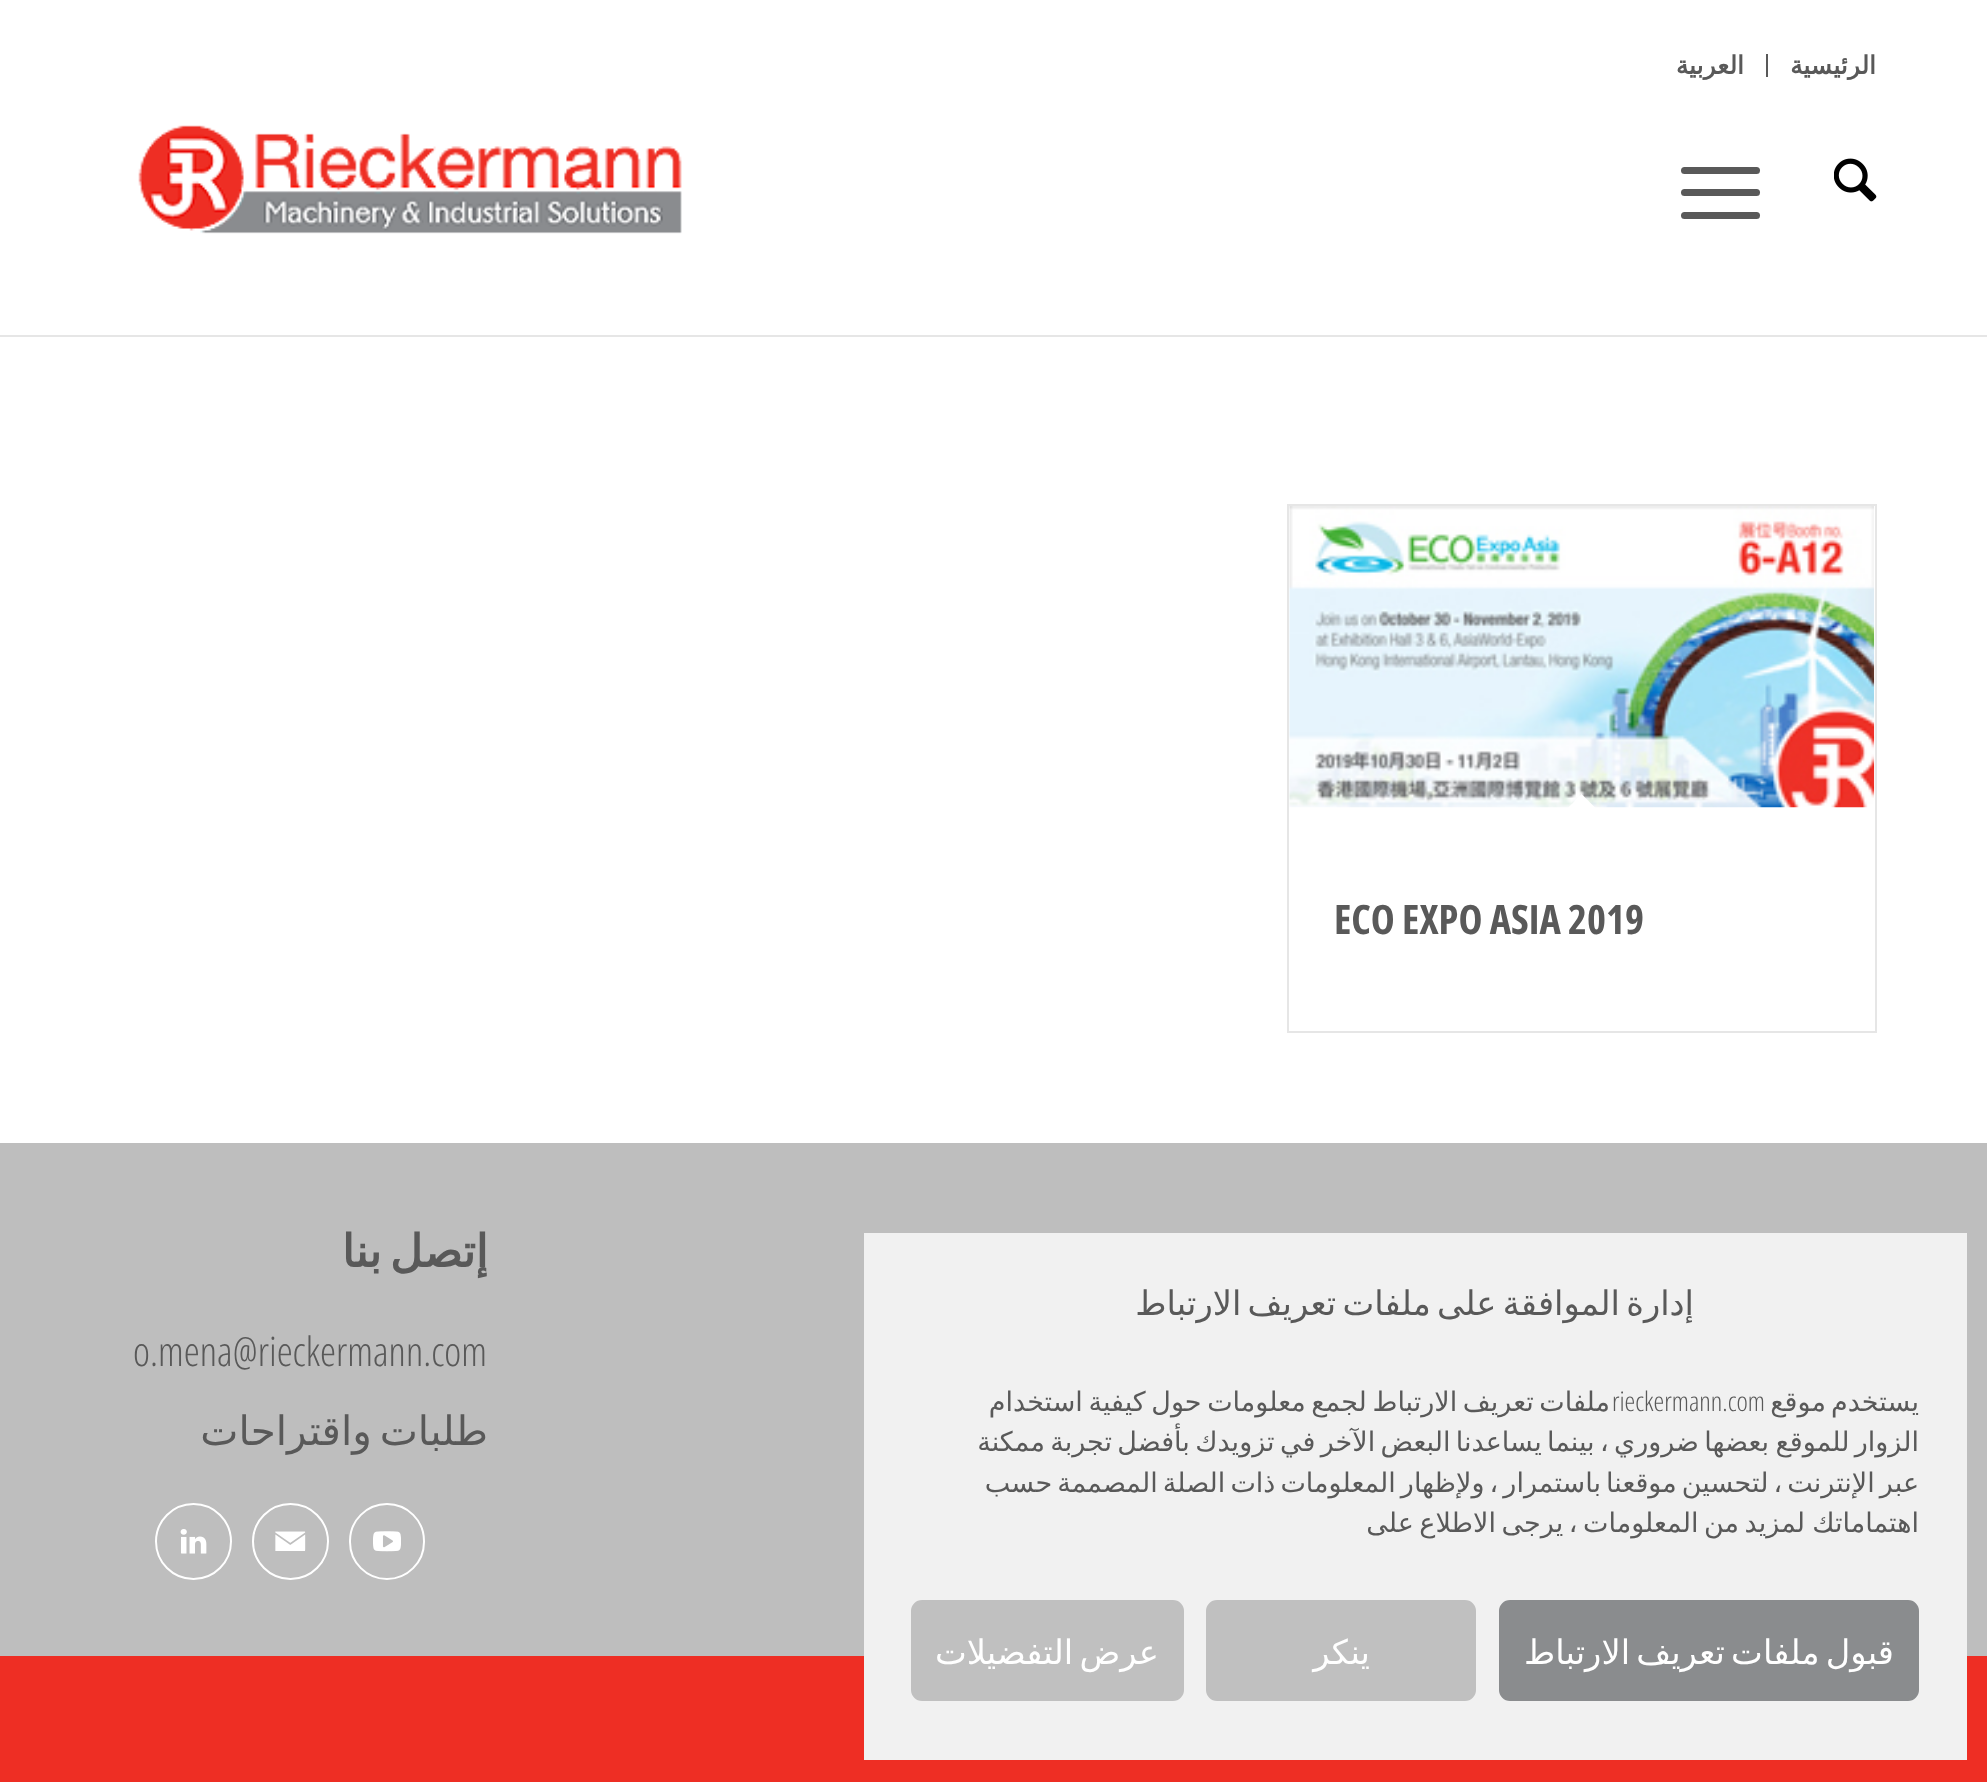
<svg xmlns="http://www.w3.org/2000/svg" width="1987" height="1782">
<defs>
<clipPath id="clip1"><rect x="135" y="1190" width="353" height="279"/></clipPath>
<clipPath id="clip2"><rect x="911" y="1382" width="1008" height="173"/></clipPath>
</defs>
<rect width="100%" height="100%" fill="#fff"/>
<rect x="1766" y="54" width="2" height="23" fill="#595959"/>
<text x="1876" y="74" style="font-family:DejaVu Sans;font-size:25px;font-weight:bold;direction:rtl;fill:#595959">الرئيسية</text>
<text x="1744" y="74" style="font-family:DejaVu Sans;font-size:25px;font-weight:bold;direction:rtl;fill:#595959">العربية</text>
<image x="1834" y="158" width="43" height="44" href="media/1.png"/>
<rect x="1681" y="189" width="79" height="7" rx="3.5" fill="#595959"/>
<rect x="1681" y="167" width="79" height="7" rx="3.5" fill="#595959"/>
<rect x="1681" y="212" width="79" height="7" rx="3.5" fill="#595959"/>
<image x="138" y="125" width="544" height="109" href="media/2.png"/>
<rect y="335" width="1987" height="2" fill="#e6e6e6"/>
<rect x="1288" y="505" width="588" height="527" fill="none" stroke="#e6e6e6" stroke-width="2"/>
<image x="1289" y="506" width="586" height="302" href="media/3.png"/>
<path d="M1581.5 794l16 16l-16 15.5l-15.5-15.5z" fill="#fff"/>
<text x="1334" y="934" style="font-family:Open Sans Condensed;font-size:40.5px;font-weight:bold;fill:#595959">ECO EXPO ASIA 2019</text>
<rect y="1143" width="1987" height="513" fill="#bebebe"/>
<g clip-path="url(#clip1)">
<text x="488" y="1267" word-spacing="-6" style="font-family:DejaVu Sans;font-size:45px;font-weight:bold;direction:rtl;fill:#595959">إتصل بنا</text>
</g>
<text x="133" y="1366" style="font-family:Open Sans Condensed;font-size:40.5px;font-weight:300;fill:#595959">o.mena@rieckermann.com</text>
<g clip-path="url(#clip1)">
<text x="488" y="1445" word-spacing="-5" style="font-family:DejaVu Sans;font-size:40.5px;direction:rtl;fill:#595959">طلبات واقتراحات</text>
</g>
<rect x="350" y="1504" width="74" height="75" rx="37" fill="none" stroke="#fff" stroke-width="2"/>
<image x="373" y="1531" width="28" height="21" href="media/4.png"/>
<circle cx="290.5" cy="1541.5" r="37.5" fill="none" stroke="#fff" stroke-width="2"/>
<image x="275" y="1531" width="31" height="20" href="media/5.png"/>
<circle cx="193.5" cy="1541.5" r="37.5" fill="none" stroke="#fff" stroke-width="2"/>
<image x="180" y="1529" width="27" height="25" href="media/6.png"/>
<rect y="1656" width="1987" height="126" fill="#ee2e24"/>
<rect x="864" y="1233" width="1103" height="527" fill="#f1f1f1"/>
<text x="1694" y="1315" word-spacing="-4.5" style="font-family:DejaVu Sans;font-size:33.75px;direction:rtl;fill:#595959">إدارة الموافقة على ملفات تعريف الارتباط</text>
<g clip-path="url(#clip2)">
<text x="1919" y="1411" word-spacing="-3.5" style="font-family:DejaVu Sans;font-size:27px;direction:rtl;fill:#595959">يستخدم موقع</text>
</g>
<text x="1610" y="1411" word-spacing="-3" style="font-family:DejaVu Sans;font-size:27px;direction:rtl;fill:#595959">ملفات تعريف الارتباط لجمع معلومات حول كيفية استخدام</text>
<text x="1612" y="1411" style="font-family:Open Sans Condensed;font-size:27px;font-weight:300;fill:#595959">rieckermann.com</text>
<text x="1769" y="1451" word-spacing="-3.25" style="font-family:DejaVu Sans;font-size:27px;direction:rtl;fill:#595959">بعضها ضروري ، بينما يساعدنا البعض الآخر في تزويدك بأفضل تجربة ممكنة</text>
<g clip-path="url(#clip2)">
<text x="1919" y="1451" word-spacing="-3.25" style="font-family:DejaVu Sans;font-size:27px;direction:rtl;fill:#595959">الزوار للموقع</text>
<text x="1919" y="1492" word-spacing="-3.5" style="font-family:DejaVu Sans;font-size:27px;direction:rtl;fill:#595959">عبر الإنترنت ، لتحسين موقعنا باستمرار ، ولإظهار المعلومات ذات الصلة المصممة حسب</text>
</g>
<text x="1805" y="1532" word-spacing="-3" style="font-family:DejaVu Sans;font-size:27px;direction:rtl;fill:#595959">لمزيد من المعلومات ، يرجى الاطلاع على</text>
<text x="1919" y="1532" style="font-family:DejaVu Sans;font-size:27px;direction:rtl;fill:#595959">اهتماماتك</text>
<rect x="1500" y="1601" width="418" height="99" rx="10" fill="#8a8c8e" stroke="#8a8c8e" stroke-width="2"/>
<text x="1894" y="1664" word-spacing="-4.5" style="font-family:DejaVu Sans;font-size:33.75px;direction:rtl;fill:#fff">قبول ملفات تعريف الارتباط</text>
<rect x="1207" y="1601" width="268" height="99" rx="10" fill="#c0c0c0" stroke="#c0c0c0" stroke-width="2"/>
<text x="1370" y="1664" style="font-family:DejaVu Sans;font-size:33.75px;direction:rtl;fill:#fff">ينكر</text>
<rect x="912" y="1601" width="271" height="99" rx="10" fill="#c0c0c0" stroke="#c0c0c0" stroke-width="2"/>
<text x="1159" y="1664" word-spacing="-4.5" style="font-family:DejaVu Sans;font-size:33.75px;direction:rtl;fill:#fff">عرض التفضيلات</text>
</svg>
